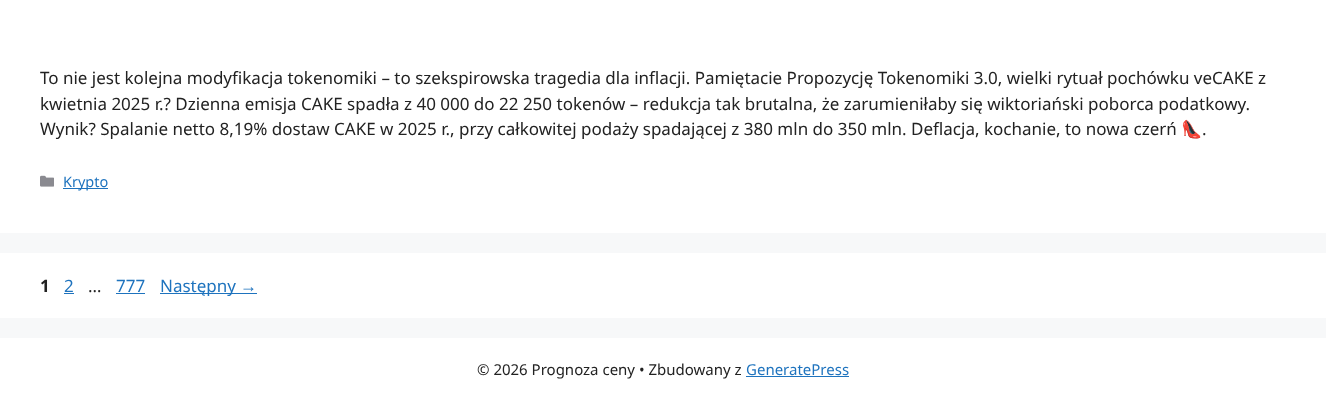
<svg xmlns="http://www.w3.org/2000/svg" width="1326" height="401">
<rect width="100%" height="100%" fill="#f7f8f9"/>
<rect width="1326" height="233" fill="#fff"/>
<text x="40" y="84" style="font-family:Noto Sans;font-size:17px;fill:#222">To nie jest kolejna modyfikacja tokenomiki – to szekspirowska tragedia dla inflacji. Pamiętacie Propozycję Tokenomiki 3.0, wielki rytuał pochówku veCAKE z</text>
<text x="40" y="110" style="font-family:Noto Sans;font-size:17px;fill:#222">kwietnia 2025 r.? Dzienna emisja CAKE spadła z 40 000 do 22 250 tokenów – redukcja tak brutalna, że zarumieniłaby się wiktoriański poborca podatkowy.</text>
<text x="40" y="135" style="font-family:Noto Sans;font-size:17px;fill:#222">Wynik? Spalanie netto 8,19% dostaw CAKE w 2025 r., przy całkowitej podaży spadającej z 380 mln do 350 mln. Deflacja, kochanie, to nowa czerń</text>
<text x="1181" y="135" style="font-family:Noto Color Emoji;font-size:17px;fill:#222">👠</text>
<text x="1202" y="135" style="font-family:Noto Sans;font-size:17px;fill:#222">.</text>
<image x="40" y="175" width="14" height="12" href="media/1.png"/>
<rect x="63" y="188" width="45" height="1" fill="#1e73be"/>
<text x="63" y="187" style="font-family:Noto Sans;font-size:14.5px;fill:#1e73be">Krypto</text>
<rect y="253" width="1326" height="65" fill="#fff"/>
<text x="40" y="292" style="font-family:Noto Sans;font-size:17px;font-weight:bold;fill:#222">1</text>
<text x="64" y="292" style="font-family:Noto Sans;font-size:17px;fill:#1e73be">2</text>
<rect x="64" y="293" width="10" height="1" fill="#1e73be"/>
<text x="88" y="292" style="font-family:Noto Sans;font-size:17px;fill:#222">…</text>
<text x="116" y="292" style="font-family:Noto Sans;font-size:17px;fill:#1e73be">777</text>
<rect x="116" y="293" width="29" height="1" fill="#1e73be"/>
<rect x="160" y="293" width="97" height="1" fill="#1e73be"/>
<text x="160" y="292" style="font-family:Noto Sans;font-size:17px;fill:#1e73be">Następny</text>
<text x="240" y="292" style="font-family:Liberation Sans;font-size:17px;fill:#1e73be">→</text>
<rect y="338" width="1326" height="63" fill="#fff"/>
<text x="477" y="375" style="font-family:Noto Sans;font-size:15px;fill:#222">© 2026 Prognoza ceny • Zbudowany z</text>
<text x="746" y="375" style="font-family:Noto Sans;font-size:15px;fill:#1e73be">GeneratePress</text>
<rect x="746" y="376" width="103" height="1" fill="#1e73be"/>
</svg>
